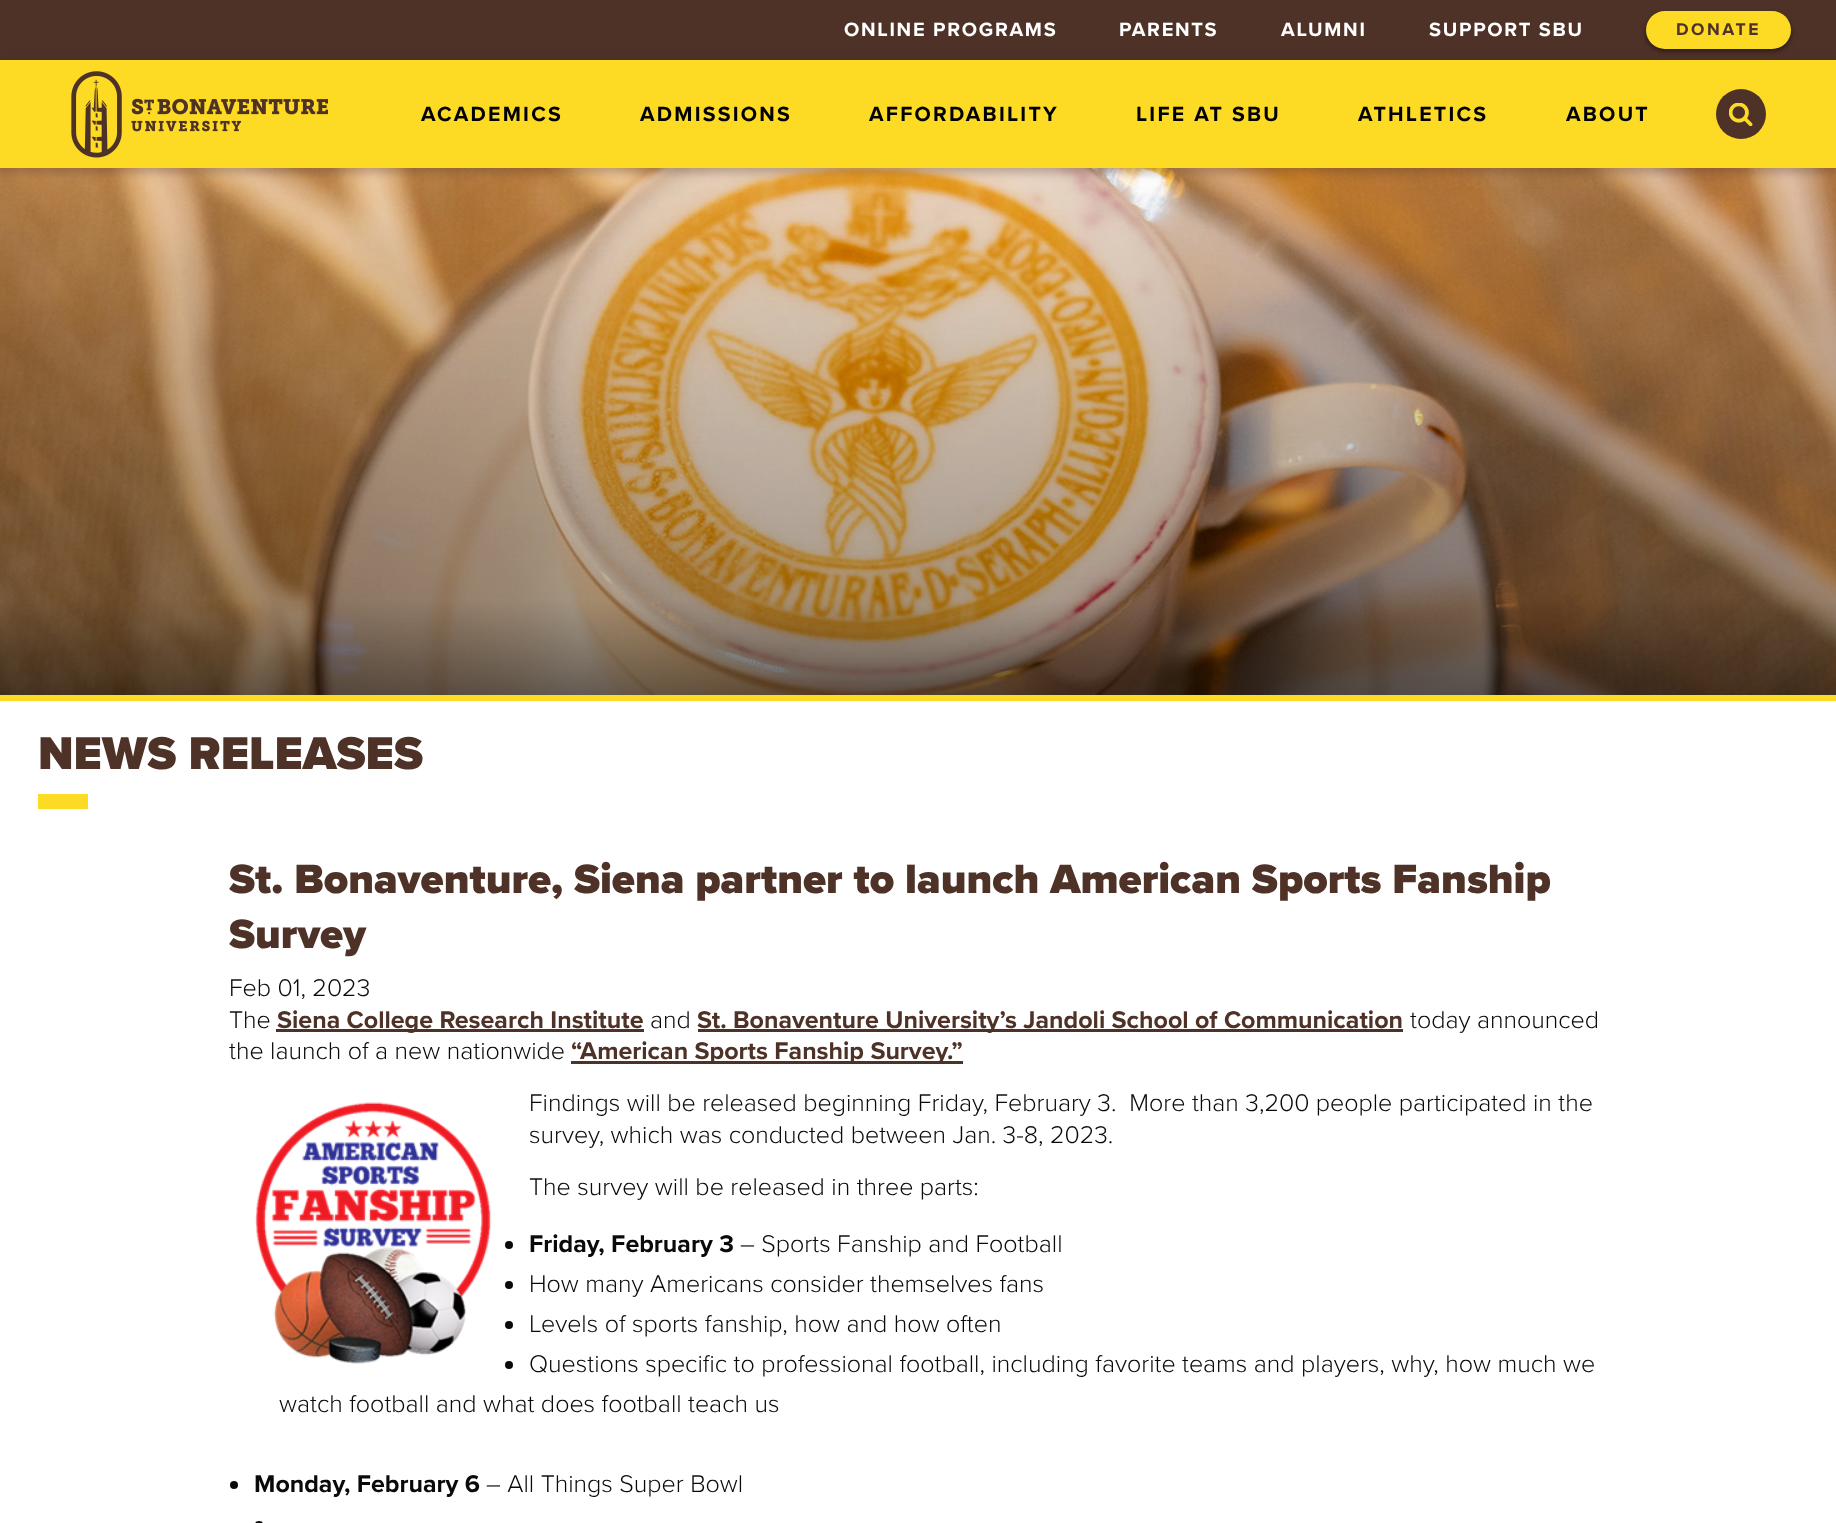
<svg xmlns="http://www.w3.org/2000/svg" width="1836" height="1523">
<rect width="100%" height="100%" fill="#fff"/>
<rect width="1836" height="60" fill="#4e3227"/>
<text x="844" y="36" style="font-family:Proxima Nova;font-size:20px;font-weight:bold;letter-spacing:1.7px;fill:#fff">ONLINE PROGRAMS</text>
<text x="1119" y="36" style="font-family:Proxima Nova;font-size:20px;font-weight:bold;letter-spacing:1.7px;fill:#fff">PARENTS</text>
<text x="1281" y="36" style="font-family:Proxima Nova;font-size:20px;font-weight:bold;letter-spacing:1.7px;fill:#fff">ALUMNI</text>
<text x="1429" y="36" style="font-family:Proxima Nova;font-size:20px;font-weight:bold;letter-spacing:1.7px;fill:#fff">SUPPORT SBU</text>
<rect x="1646" y="14" width="145" height="37" rx="18.5" fill="#00000080" filter="blur(2.5px)"/>
<rect x="1646" y="11" width="145" height="38" rx="19" fill="#fdda24"/>
<text x="1676" y="35" style="font-family:Proxima Nova;font-size:17.5px;font-weight:bold;letter-spacing:2.5px;fill:#4e3227">DONATE</text>
<image x="0" y="168" width="1836" height="527" href="media/3.png"/>
<rect x="-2" y="60" width="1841" height="113" fill="#4e32274d" filter="blur(4.5px)"/>
<rect y="60" width="1836" height="108" fill="#fdda24"/>
<image x="71" y="71" width="257" height="87" href="media/1.png"/>
<text x="421" y="121" style="font-family:Proxima Nova;font-size:21.25px;font-weight:bold;letter-spacing:2.25px;fill:#000">ACADEMICS</text>
<text x="640" y="121" style="font-family:Proxima Nova;font-size:21.25px;font-weight:bold;letter-spacing:2.25px;fill:#000">ADMISSIONS</text>
<text x="869" y="121" style="font-family:Proxima Nova;font-size:21.25px;font-weight:bold;letter-spacing:2.25px;fill:#000">AFFORDABILITY</text>
<text x="1136" y="121" style="font-family:Proxima Nova;font-size:21.25px;font-weight:bold;letter-spacing:2.25px;fill:#000">LIFE AT SBU</text>
<text x="1358" y="121" style="font-family:Proxima Nova;font-size:21.25px;font-weight:bold;letter-spacing:2.25px;fill:#000">ATHLETICS</text>
<text x="1566" y="121" style="font-family:Proxima Nova;font-size:21.25px;font-weight:bold;letter-spacing:2.25px;fill:#000">ABOUT</text>
<circle cx="1741" cy="114" r="25" fill="#4e3227"/>
<image x="1729" y="103" width="24" height="23" href="media/2.png"/>
<rect y="695" width="1836" height="6" fill="#fdda24"/>
<text x="38" y="769" style="font-family:Proxima Nova;font-size:47.5px;font-weight:900;fill:#4e3227">NEWS RELEASES</text>
<rect x="38" y="794" width="50" height="15" fill="#fdda24"/>
<text x="229" y="893" style="font-family:Proxima Nova;font-size:42.5px;font-weight:900;fill:#4e3227">St. Bonaventure, Siena partner to launch American Sports Fanship</text>
<text x="229" y="948" style="font-family:Proxima Nova;font-size:42.5px;font-weight:900;fill:#4e3227">Survey</text>
<text x="229" y="996" style="font-family:Proxima Nova;font-size:25px;font-weight:300;fill:#0a0a0a">Feb 01, 2023</text>
<text x="229" y="1028" style="font-family:Proxima Nova;font-size:25px;font-weight:300;fill:#0a0a0a">The</text>
<rect x="276" y="1029" width="368" height="3" fill="#4e3227"/>
<text x="277" y="1028" style="font-family:Proxima Nova;font-size:25px;font-weight:bold;fill:#4e3227">Siena College Research Institute</text>
<text x="650" y="1028" style="font-family:Proxima Nova;font-size:25px;font-weight:300;fill:#0a0a0a">and</text>
<rect x="698" y="1029" width="705" height="3" fill="#4e3227"/>
<text x="697" y="1028" style="font-family:Proxima Nova;font-size:25px;font-weight:bold;fill:#4e3227">St. Bonaventure University’s Jandoli School of Communication</text>
<text x="1410" y="1028" style="font-family:Proxima Nova;font-size:25px;font-weight:300;fill:#0a0a0a">today announced</text>
<text x="229" y="1059" style="font-family:Proxima Nova;font-size:25px;font-weight:300;fill:#0a0a0a">the launch of a new nationwide</text>
<rect x="571" y="1061" width="392" height="3" fill="#4e3227"/>
<text x="571" y="1059" style="font-family:Proxima Nova;font-size:25px;font-weight:bold;fill:#4e3227">“American Sports Fanship Survey.”</text>
<image x="255" y="1102" width="236" height="262" href="media/4.png"/>
<text x="529" y="1111" style="font-family:Proxima Nova;font-size:25px;font-weight:300;fill:#0a0a0a" xml:space="preserve">Findings will be released beginning Friday, February 3.  More than 3,200 people participated in the</text>
<text x="529" y="1143" style="font-family:Proxima Nova;font-size:25px;font-weight:300;fill:#0a0a0a">survey, which was conducted between Jan. 3-8, 2023.</text>
<text x="529" y="1195" style="font-family:Proxima Nova;font-size:25px;font-weight:300;fill:#0a0a0a">The survey will be released in three parts:</text>
<circle cx="509" cy="1245" r="4" fill="#0a0a0a"/>
<text x="529" y="1252" style="font-family:Proxima Nova;font-size:25px;font-weight:bold;fill:#0a0a0a">Friday, February 3</text>
<text x="740" y="1252" style="font-family:Proxima Nova;font-size:25px;font-weight:300;fill:#0a0a0a">– Sports Fanship and Football</text>
<circle cx="509" cy="1285" r="4" fill="#0a0a0a"/>
<text x="529" y="1292" style="font-family:Proxima Nova;font-size:25px;font-weight:300;fill:#0a0a0a">How many Americans consider themselves fans</text>
<circle cx="509" cy="1325" r="4" fill="#0a0a0a"/>
<text x="529" y="1332" style="font-family:Proxima Nova;font-size:25px;font-weight:300;fill:#0a0a0a">Levels of sports fanship, how and how often</text>
<circle cx="509" cy="1365" r="4" fill="#0a0a0a"/>
<text x="529" y="1372" style="font-family:Proxima Nova;font-size:25px;font-weight:300;fill:#0a0a0a">Questions specific to professional football, including favorite teams and players, why, how much we</text>
<text x="279" y="1412" style="font-family:Proxima Nova;font-size:25px;font-weight:300;fill:#0a0a0a">watch football and what does football teach us</text>
<circle cx="234" cy="1485" r="4" fill="#0a0a0a"/>
<text x="254" y="1492" style="font-family:Proxima Nova;font-size:25px;font-weight:bold;fill:#0a0a0a">Monday, February 6</text>
<text x="486" y="1492" style="font-family:Proxima Nova;font-size:25px;font-weight:300;fill:#0a0a0a">– All Things Super Bowl</text>
<rect x="255" y="1521" width="8" height="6" rx="4" fill="#0a0a0a"/>
</svg>
